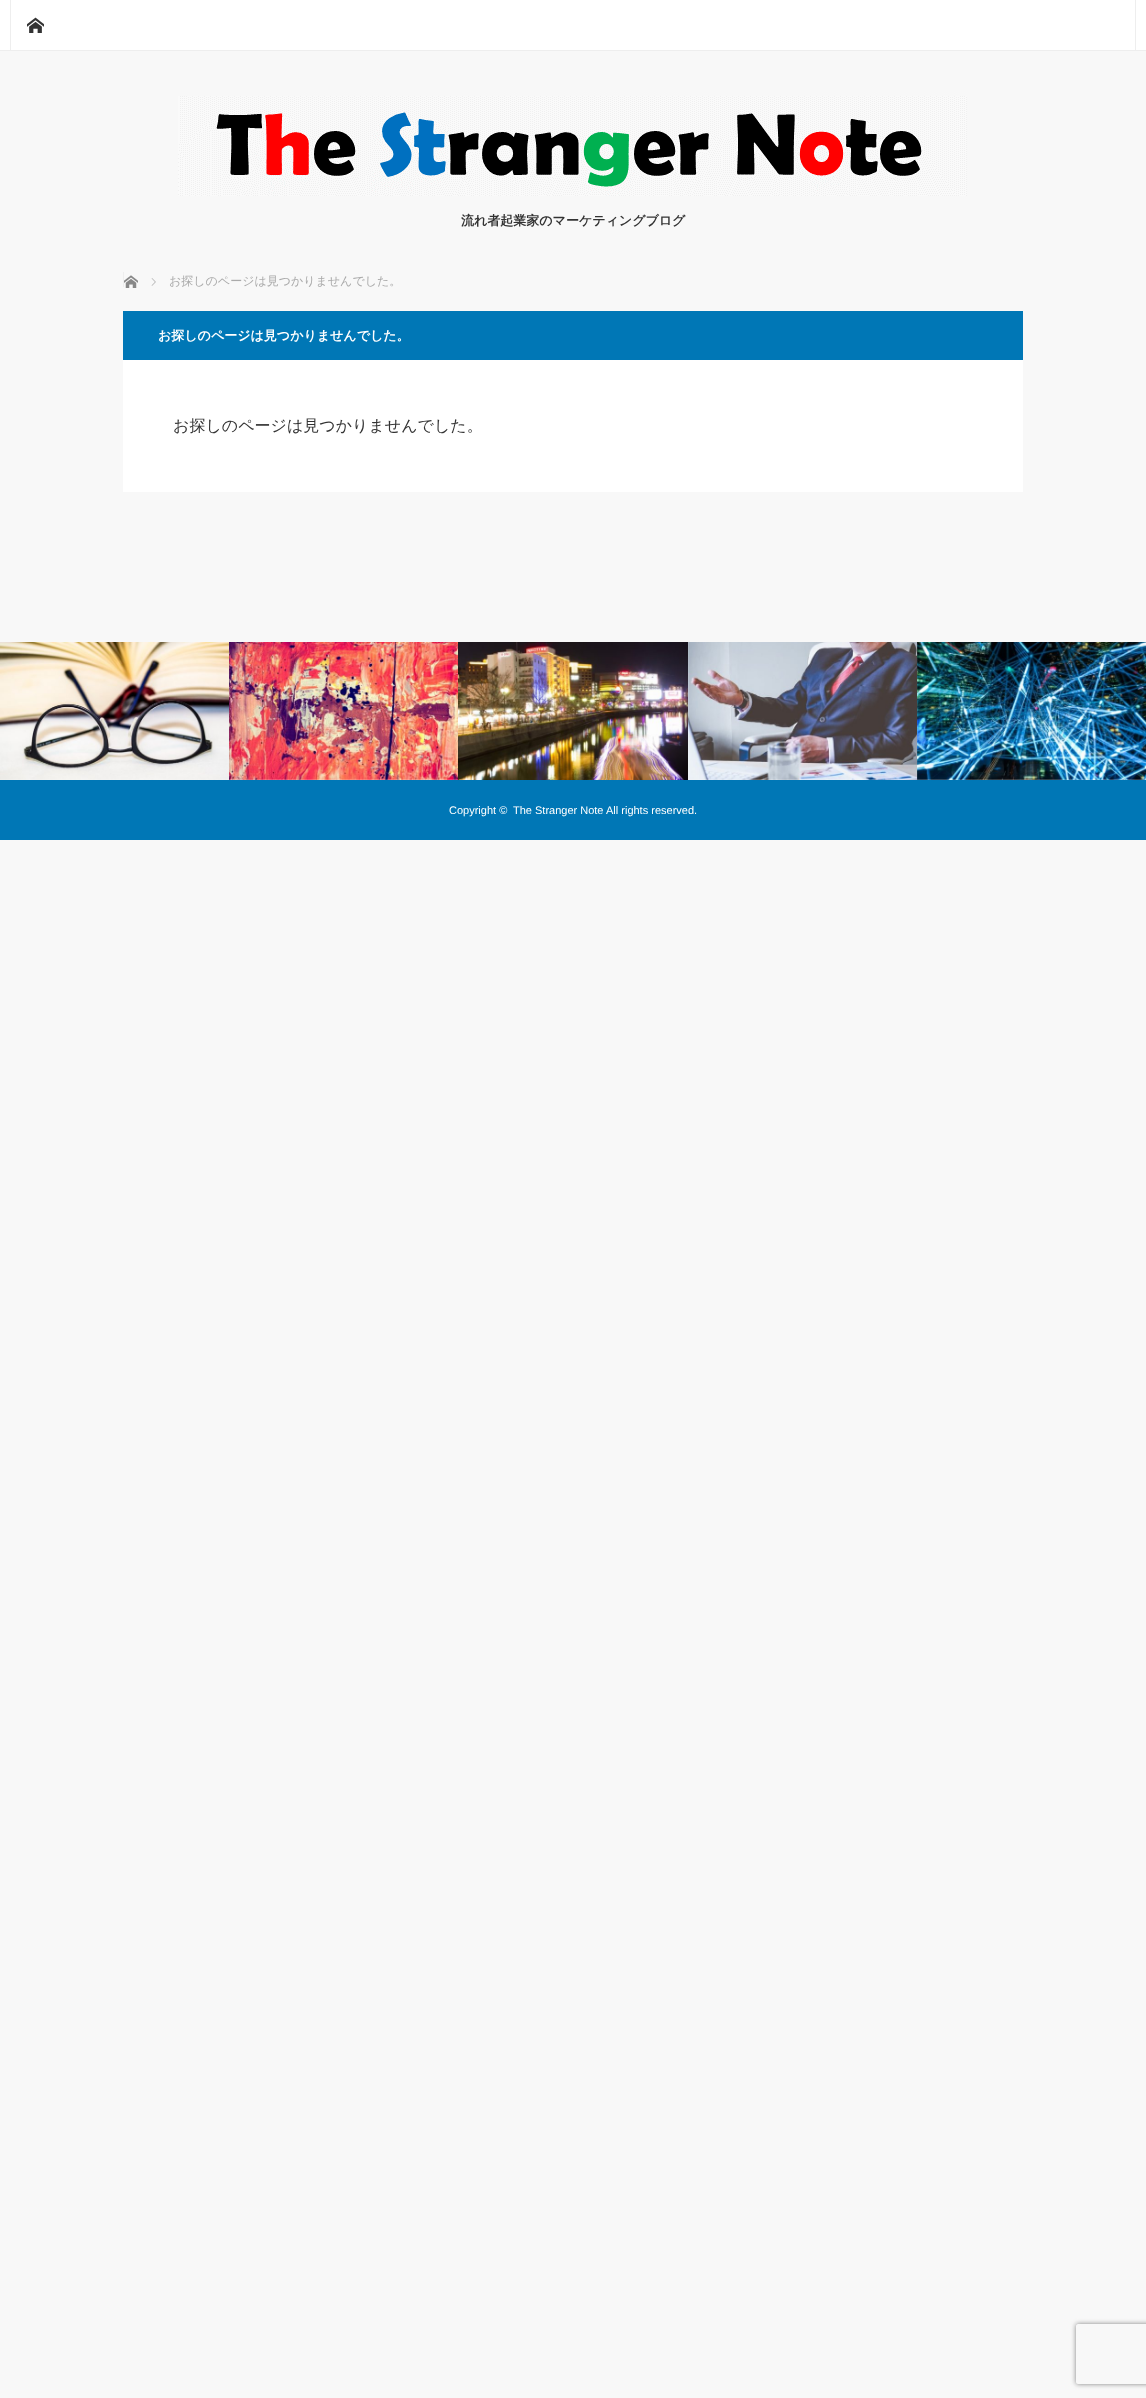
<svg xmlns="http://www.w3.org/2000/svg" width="1146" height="2398">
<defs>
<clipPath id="clip1"><path d="M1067 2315h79v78h-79zm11 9h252c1 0 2 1 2 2v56c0 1-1 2-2 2h-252c-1 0-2-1-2-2v-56c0-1 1-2 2-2z" clip-rule="evenodd"/></clipPath>
</defs>
<rect width="100%" height="100%" fill="#f8f8f8"/>
<rect width="1146" height="50" fill="#fff"/>
<rect y="50" width="1146" height="1" fill="#eee"/>
<rect x="1135" width="1" height="50" fill="#eee"/>
<rect x="10" width="1" height="50" fill="#eee"/>
<image x="27" y="17" width="17" height="16" href="media/1.png"/>
<image x="178" y="96" width="789" height="100" href="media/2.png"/>
<text x="461" y="225" style="font-family:WenQuanYi Zen Hei;font-size:13px;font-weight:bold;fill:#333">流れ者起業家のマーケティングブログ</text>
<rect x="123" y="272" width="1" height="15" fill="#eee"/>
<image x="124" y="275" width="14" height="13" href="media/3.png"/>
<image x="151" y="278" width="5" height="8" href="media/4.png"/>
<text x="169" y="285" style="font-family:WenQuanYi Zen Hei;font-size:12px;font-weight:500;fill:#aaa">お探しのページは見つかりませんでした。</text>
<rect x="123" y="360" width="900" height="132" fill="#fff"/>
<rect x="123" y="311" width="900" height="49" fill="#0077b6"/>
<text x="158" y="340" style="font-family:WenQuanYi Zen Hei;font-size:13px;font-weight:bold;fill:#fff">お探しのページは見つかりませんでした。</text>
<text x="173" y="431" style="font-family:WenQuanYi Zen Hei;font-size:16px;font-weight:500;fill:#333">お探しのページは見つかりませんでした。</text>
<image x="0" y="642" width="229" height="138" href="media/5.png"/>
<image x="229" y="642" width="229" height="138" href="media/6.png"/>
<image x="458" y="642" width="230" height="138" href="media/7.png"/>
<image x="688" y="642" width="229" height="138" href="media/8.png"/>
<image x="917" y="642" width="229" height="138" href="media/9.png"/>
<rect y="780" width="1146" height="60" fill="#0077b6"/>
<text x="449" y="814" style="font-family:Liberation Sans;font-size:11px;fill:#fff">Copyright ©</text>
<text x="513" y="814" style="font-family:Liberation Sans;font-size:11px;fill:#fff">The Stranger Note</text>
<text x="606" y="814" style="font-family:Liberation Sans;font-size:11px;fill:#fff">All rights reserved.</text>
<g clip-path="url(#clip1)">
<rect x="1076" y="2324" width="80" height="60" rx="2" fill="#808080" filter="blur(2.5px)"/>
</g>
</svg>
